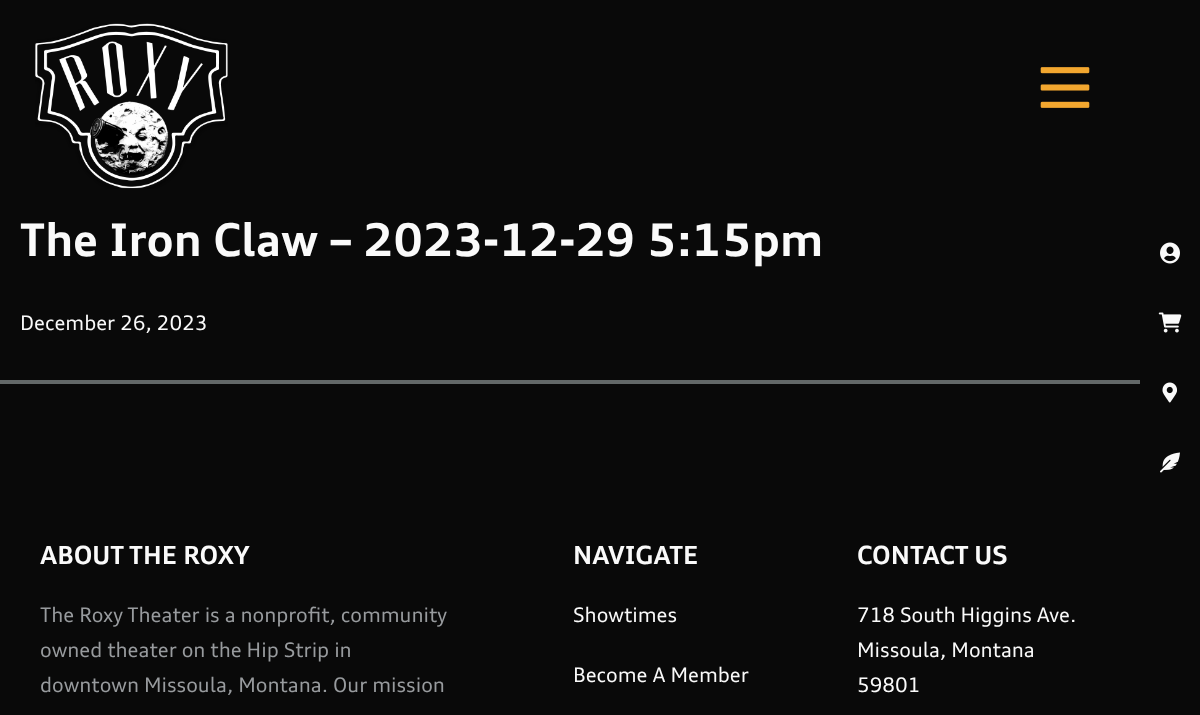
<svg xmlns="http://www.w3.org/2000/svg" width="1200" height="715">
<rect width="100%" height="100%" fill="#090909"/>
<image x="35" y="23" width="193" height="166" href="media/1.png"/>
<image x="1040" y="67" width="50" height="41" href="media/2.png"/>
<text x="20" y="256" style="font-family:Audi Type;font-size:45px;font-weight:bold;fill:#fafafa">The Iron Claw – 2023-12-29 5:15pm</text>
<text x="20" y="330" style="font-family:Audi Type;font-size:20px;fill:#fafafa">December 26, 2023</text>
<image x="1160" y="242" width="20" height="22" href="media/3.png"/>
<image x="1158" y="312" width="24" height="21" href="media/4.png"/>
<image x="1162" y="382" width="15" height="21" href="media/5.png"/>
<image x="1160" y="452" width="20" height="21" href="media/6.png"/>
<rect y="380" width="1140" height="4" fill="#636868"/>
<text x="40" y="564" style="font-family:Audi Type;font-size:25px;font-weight:bold;fill:#fafafa">ABOUT THE ROXY</text>
<text x="40" y="622" style="font-family:Audi Type;font-size:20px;fill:#989b9e">The Roxy Theater is a nonprofit, community</text>
<text x="40" y="657" style="font-family:Audi Type;font-size:20px;fill:#989b9e">owned theater on the Hip Strip in</text>
<text x="40" y="692" style="font-family:Audi Type;font-size:20px;fill:#989b9e">downtown Missoula, Montana. Our mission</text>
<text x="573" y="564" style="font-family:Audi Type;font-size:25px;font-weight:bold;fill:#fafafa">NAVIGATE</text>
<text x="573" y="622" style="font-family:Audi Type;font-size:20px;fill:#fafafa">Showtimes</text>
<text x="573" y="682" style="font-family:Audi Type;font-size:20px;fill:#fafafa">Become A Member</text>
<text x="857" y="564" style="font-family:Audi Type;font-size:25px;font-weight:bold;fill:#fafafa">CONTACT US</text>
<text x="857" y="622" style="font-family:Audi Type;font-size:20px;fill:#fafafa">718 South Higgins Ave.</text>
<text x="857" y="657" style="font-family:Audi Type;font-size:20px;fill:#fafafa">Missoula, Montana</text>
<text x="857" y="692" style="font-family:Audi Type;font-size:20px;fill:#fafafa">59801</text>
</svg>
